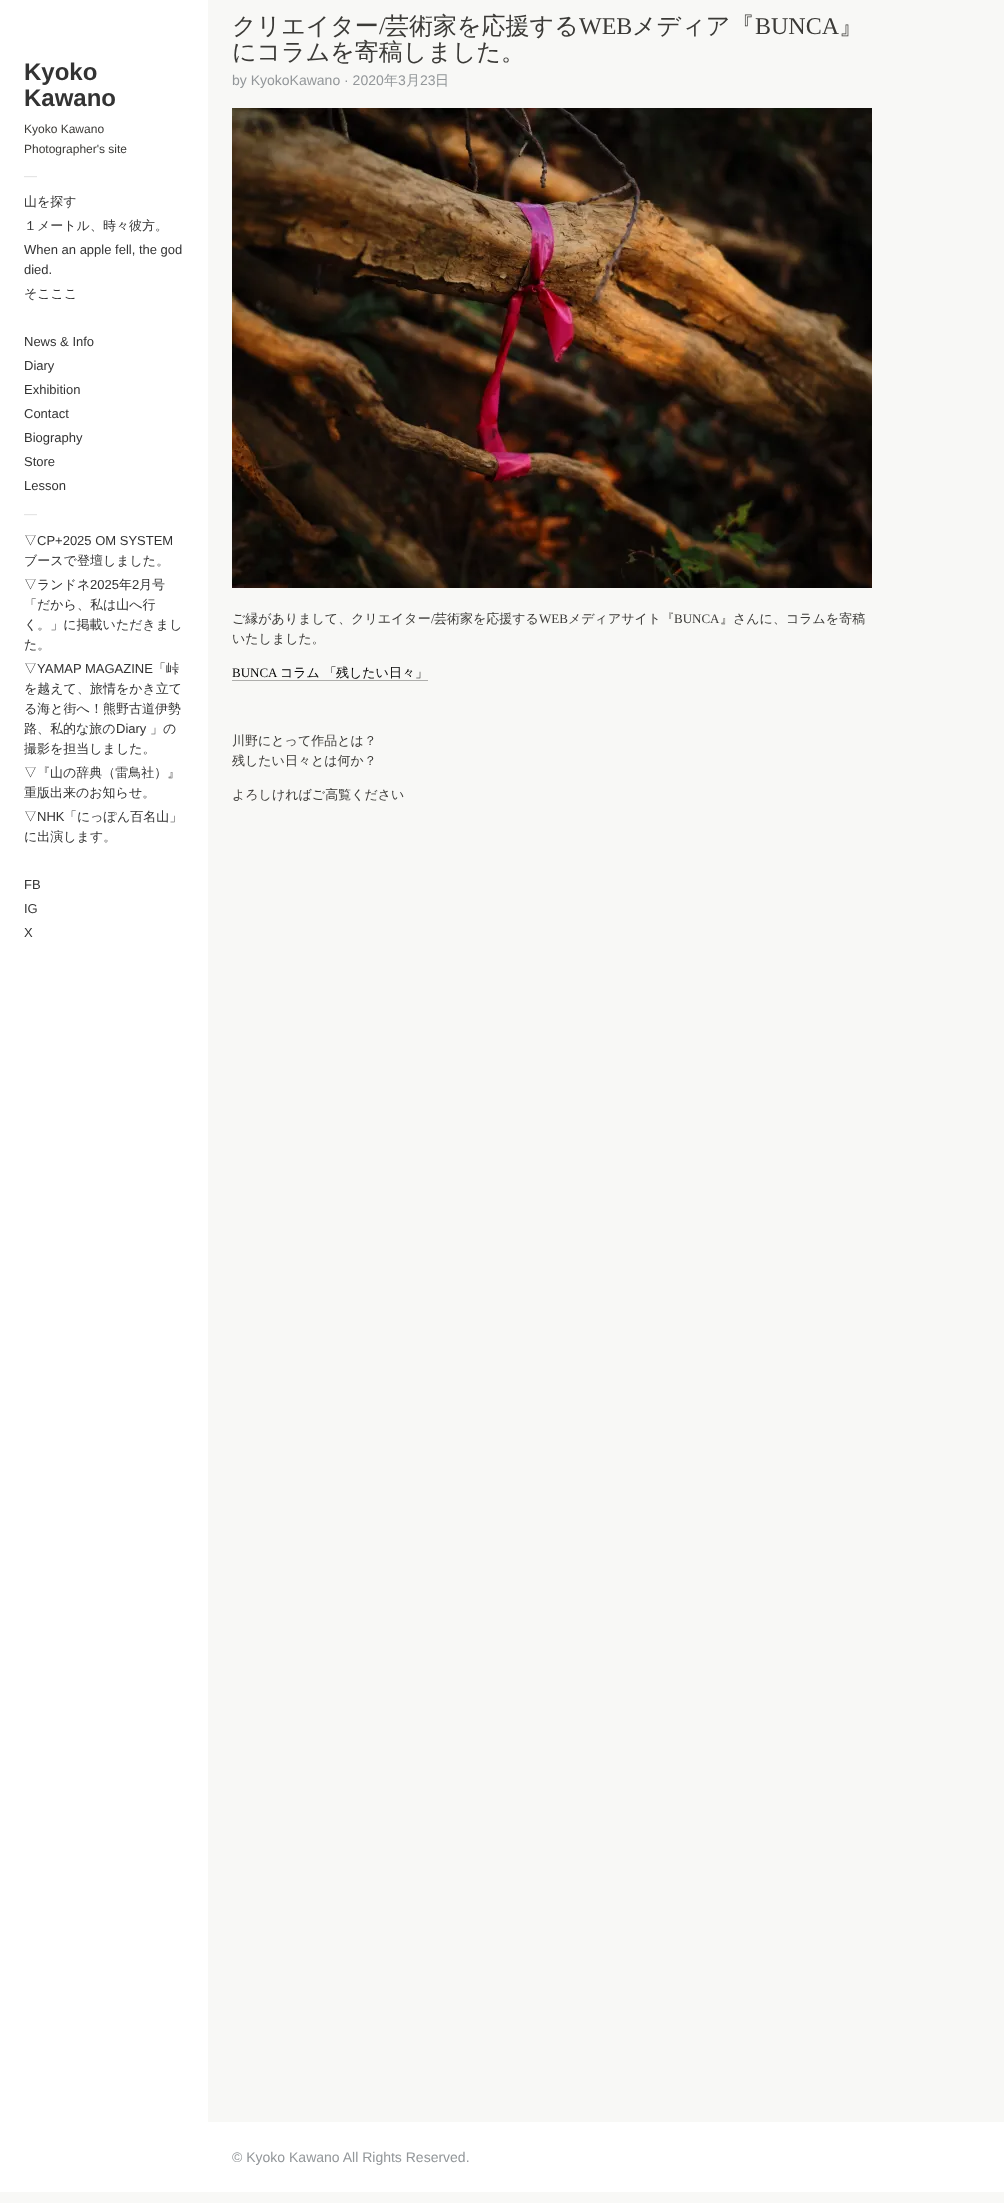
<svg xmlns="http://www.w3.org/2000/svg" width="1004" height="2203">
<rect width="100%" height="100%" fill="#f8f8f6"/>
<rect width="208" height="2122" fill="#fff"/>
<text x="24" y="80" style="font-family:Liberation Sans;font-size:24px;font-weight:bold;fill:#333">Kyoko</text>
<text x="24" y="106" style="font-family:Liberation Sans;font-size:24px;font-weight:bold;fill:#333">Kawano</text>
<text x="24" y="133" style="font-family:Liberation Sans;font-size:12px;fill:#3b3a37">Kyoko Kawano</text>
<text x="24" y="153" style="font-family:Liberation Sans;font-size:12px;fill:#3b3a37">Photographer's site</text>
<text x="24" y="180" style="font-family:Liberation Sans;font-size:13px;fill:#ddd">—</text>
<text x="24" y="206" style="font-family:WenQuanYi Zen Hei;font-size:13px;font-weight:500;fill:#333">山を探す</text>
<text x="24" y="230" style="font-family:WenQuanYi Zen Hei;font-size:13px;font-weight:500;fill:#333">１メートル、時々彼方。</text>
<text x="24" y="254" style="font-family:Liberation Sans;font-size:13px;fill:#333">When an apple fell, the god</text>
<text x="24" y="274" style="font-family:Liberation Sans;font-size:13px;fill:#333">died.</text>
<text x="24" y="298" style="font-family:WenQuanYi Zen Hei;font-size:13px;font-weight:500;fill:#333">そこここ</text>
<text x="24" y="346" style="font-family:Liberation Sans;font-size:13px;fill:#333">News &amp; Info</text>
<text x="24" y="370" style="font-family:Liberation Sans;font-size:13px;fill:#333">Diary</text>
<text x="24" y="394" style="font-family:Liberation Sans;font-size:13px;fill:#333">Exhibition</text>
<text x="24" y="418" style="font-family:Liberation Sans;font-size:13px;fill:#333">Contact</text>
<text x="24" y="442" style="font-family:Liberation Sans;font-size:13px;fill:#333">Biography</text>
<text x="24" y="466" style="font-family:Liberation Sans;font-size:13px;fill:#333">Store</text>
<text x="24" y="490" style="font-family:Liberation Sans;font-size:13px;fill:#333">Lesson</text>
<text x="24" y="518" style="font-family:Liberation Sans;font-size:13px;fill:#ddd">—</text>
<text x="24" y="545" style="font-family:WenQuanYi Zen Hei;font-size:13px;font-weight:500;fill:#333">▽</text>
<text x="37" y="545" style="font-family:Liberation Sans;font-size:13px;fill:#333">CP+2025 OM SYSTEM</text>
<text x="24" y="565" style="font-family:WenQuanYi Zen Hei;font-size:13px;font-weight:500;fill:#333">ブースで登壇しました。</text>
<text x="24" y="589" style="font-family:WenQuanYi Zen Hei;font-size:13px;font-weight:500;fill:#333">▽ランドネ</text>
<text x="90" y="589" style="font-family:Liberation Sans;font-size:13px;fill:#333">2025</text>
<text x="119" y="589" style="font-family:WenQuanYi Zen Hei;font-size:13px;font-weight:500;fill:#333">年</text>
<text x="132" y="589" style="font-family:Liberation Sans;font-size:13px;fill:#333">2</text>
<text x="139" y="589" style="font-family:WenQuanYi Zen Hei;font-size:13px;font-weight:500;fill:#333">月号</text>
<text x="24" y="609" style="font-family:WenQuanYi Zen Hei;font-size:13px;font-weight:500;fill:#333">「だから、私は山へ行</text>
<text x="24" y="629" style="font-family:WenQuanYi Zen Hei;font-size:13px;font-weight:500;fill:#333">く。」に掲載いただきまし</text>
<text x="24" y="649" style="font-family:WenQuanYi Zen Hei;font-size:13px;font-weight:500;fill:#333">た。</text>
<text x="24" y="673" style="font-family:WenQuanYi Zen Hei;font-size:13px;font-weight:500;fill:#333">▽</text>
<text x="37" y="673" style="font-family:Liberation Sans;font-size:13px;fill:#333">YAMAP MAGAZINE</text>
<text x="153" y="673" style="font-family:WenQuanYi Zen Hei;font-size:13px;font-weight:500;fill:#333">「峠</text>
<text x="24" y="693" style="font-family:WenQuanYi Zen Hei;font-size:13px;font-weight:500;fill:#333">を越えて、旅情をかき立て</text>
<text x="24" y="713" style="font-family:WenQuanYi Zen Hei;font-size:13px;font-weight:500;fill:#333">る海と街へ！熊野古道伊勢</text>
<text x="24" y="733" style="font-family:WenQuanYi Zen Hei;font-size:13px;font-weight:500;fill:#333">路、私的な旅の</text>
<text x="116" y="733" style="font-family:Liberation Sans;font-size:13px;fill:#333">Diary</text>
<text x="150" y="733" style="font-family:WenQuanYi Zen Hei;font-size:13px;font-weight:500;fill:#333">」の</text>
<text x="24" y="753" style="font-family:WenQuanYi Zen Hei;font-size:13px;font-weight:500;fill:#333">撮影を担当しました。</text>
<text x="24" y="777" style="font-family:WenQuanYi Zen Hei;font-size:13px;font-weight:500;fill:#333">▽『山の辞典（雷鳥社）』</text>
<text x="24" y="797" style="font-family:WenQuanYi Zen Hei;font-size:13px;font-weight:500;fill:#333">重版出来のお知らせ。</text>
<text x="24" y="821" style="font-family:WenQuanYi Zen Hei;font-size:13px;font-weight:500;fill:#333">▽</text>
<text x="37" y="821" style="font-family:Liberation Sans;font-size:13px;fill:#333">NHK</text>
<text x="64" y="821" style="font-family:WenQuanYi Zen Hei;font-size:13px;font-weight:500;fill:#333">「にっぽん百名山」</text>
<text x="24" y="841" style="font-family:WenQuanYi Zen Hei;font-size:13px;font-weight:500;fill:#333">に出演します。</text>
<text x="24" y="889" style="font-family:Liberation Sans;font-size:13px;fill:#333">FB</text>
<text x="24" y="913" style="font-family:Liberation Sans;font-size:13px;fill:#333">IG</text>
<text x="24" y="937" style="font-family:Liberation Sans;font-size:13px;fill:#333">X</text>
<text x="232" y="34" style="font-family:WenQuanYi Zen Hei;font-size:24px;font-weight:500;fill:#3b3a37">クリエイター</text>
<text x="379" y="34" style="font-family:Liberation Serif;font-size:24px;fill:#3b3a37">/</text>
<text x="385" y="34" style="font-family:WenQuanYi Zen Hei;font-size:24px;font-weight:500;fill:#3b3a37">芸術家を応援する</text>
<text x="579" y="34" style="font-family:Liberation Serif;font-size:24px;fill:#3b3a37">WEB</text>
<text x="632" y="34" style="font-family:WenQuanYi Zen Hei;font-size:24px;font-weight:500;fill:#3b3a37">メディア『</text>
<text x="755" y="34" style="font-family:Liberation Serif;font-size:24px;fill:#3b3a37">BUNCA</text>
<text x="839" y="34" style="font-family:WenQuanYi Zen Hei;font-size:24px;font-weight:500;fill:#3b3a37">』</text>
<text x="232" y="60" style="font-family:WenQuanYi Zen Hei;font-size:24px;font-weight:500;fill:#3b3a37">にコラムを寄稿しました。</text>
<text x="232" y="85" style="font-family:Liberation Sans;font-size:14px;fill:#929699">by KyokoKawano · 2020</text>
<text x="384" y="85" style="font-family:WenQuanYi Zen Hei;font-size:14px;font-weight:500;fill:#929699">年</text>
<text x="398" y="85" style="font-family:Liberation Sans;font-size:14px;fill:#929699">3</text>
<text x="406" y="85" style="font-family:WenQuanYi Zen Hei;font-size:14px;font-weight:500;fill:#929699">月</text>
<text x="420" y="85" style="font-family:Liberation Sans;font-size:14px;fill:#929699">23</text>
<text x="435" y="85" style="font-family:WenQuanYi Zen Hei;font-size:14px;font-weight:500;fill:#929699">日</text>
<image x="232" y="108" width="640" height="480" href="media/1.png"/>
<text x="232" y="623" style="font-family:WenQuanYi Zen Hei;font-size:13px;font-weight:500;fill:#3b3a37">ご縁がありまして、クリエイター</text>
<text x="431" y="623" style="font-family:Liberation Serif;font-size:13px;fill:#3b3a37">/</text>
<text x="434" y="623" style="font-family:WenQuanYi Zen Hei;font-size:13px;font-weight:500;fill:#3b3a37">芸術家を応援する</text>
<text x="539" y="623" style="font-family:Liberation Serif;font-size:13px;fill:#3b3a37">WEB</text>
<text x="568" y="623" style="font-family:WenQuanYi Zen Hei;font-size:13px;font-weight:500;fill:#3b3a37">メディアサイト『</text>
<text x="674" y="623" style="font-family:Liberation Serif;font-size:13px;fill:#3b3a37">BUNCA</text>
<text x="720" y="623" style="font-family:WenQuanYi Zen Hei;font-size:13px;font-weight:500;fill:#3b3a37">』さんに、コラムを寄稿</text>
<text x="232" y="643" style="font-family:WenQuanYi Zen Hei;font-size:13px;font-weight:500;fill:#3b3a37">いたしました。</text>
<text x="232" y="677" style="font-family:Liberation Serif;font-size:13px;fill:#000">BUNCA</text>
<rect x="232" y="680" width="196" height="1" fill="#aeaeac"/>
<text x="280" y="677" style="font-family:WenQuanYi Zen Hei;font-size:13px;font-weight:500;fill:#000">コラム 「</text>
<text x="336" y="677" style="font-family:WenQuanYi Zen Hei;font-size:13px;font-weight:500;fill:#000">残したい日々」</text>
<text x="232" y="745" style="font-family:WenQuanYi Zen Hei;font-size:13px;font-weight:500;fill:#3b3a37">川野にとって作品とは？</text>
<text x="232" y="765" style="font-family:WenQuanYi Zen Hei;font-size:13px;font-weight:500;fill:#3b3a37">残したい日々とは何か？</text>
<text x="232" y="799" style="font-family:WenQuanYi Zen Hei;font-size:13px;font-weight:500;fill:#3b3a37">よろしければご高覧ください</text>
<rect y="2122" width="1004" height="70" fill="#fff"/>
<text x="232" y="2162" style="font-family:Liberation Sans;font-size:14px;fill:#929699">© Kyoko Kawano All Rights Reserved.</text>
</svg>
